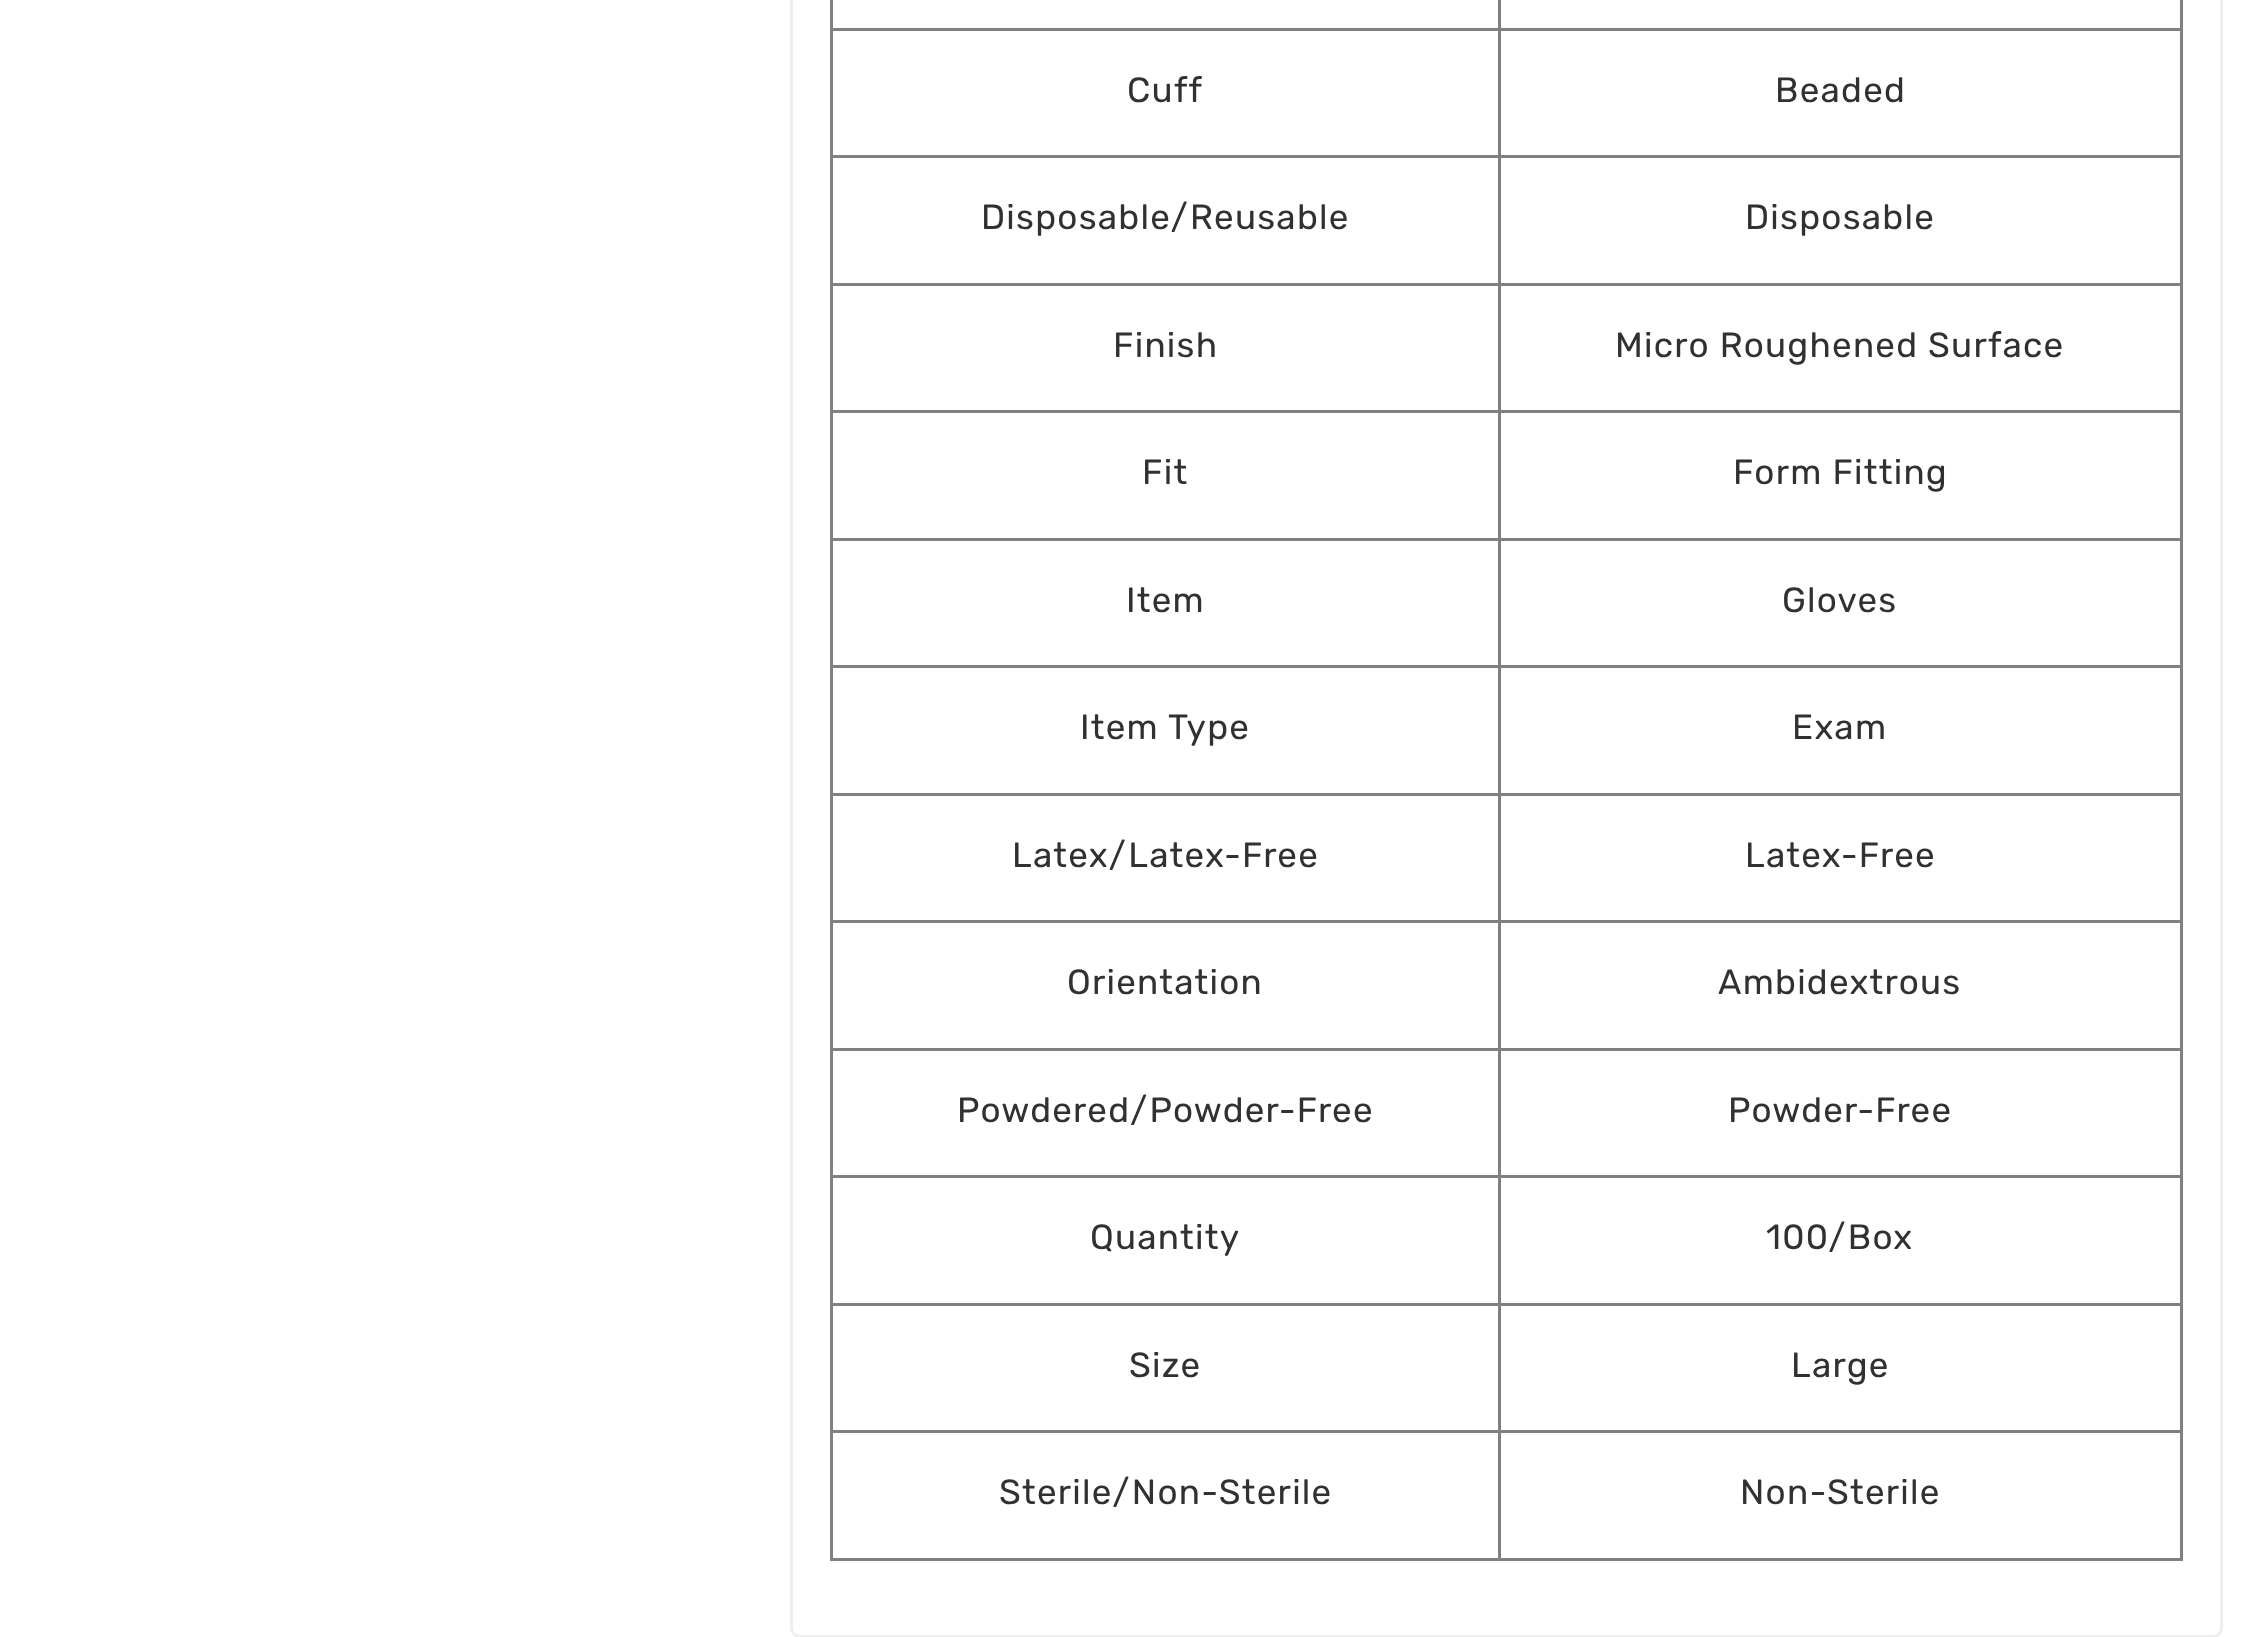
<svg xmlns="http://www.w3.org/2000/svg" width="2258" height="1637">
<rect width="100%" height="100%" fill="#fff"/>
<rect x="791.5" y="-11.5" width="1430" height="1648" rx="8.5" fill="none" stroke="#eee" stroke-width="3"/>
<rect x="2180" width="3" height="1560" fill="#808080"/>
<rect x="830" y="1558" width="1353" height="3" fill="#808080"/>
<rect x="830" width="3" height="1560" fill="#808080"/>
<rect x="1498" y="28" width="685" height="3" fill="#808080"/>
<rect x="1498" y="155" width="685" height="3" fill="#808080"/>
<rect x="1498" y="283" width="685" height="3" fill="#808080"/>
<rect x="1498" y="410" width="685" height="3" fill="#808080"/>
<rect x="1498" y="538" width="685" height="3" fill="#808080"/>
<rect x="1498" y="665" width="685" height="3" fill="#808080"/>
<rect x="1498" y="793" width="685" height="3" fill="#808080"/>
<rect x="1498" y="920" width="685" height="3" fill="#808080"/>
<rect x="1498" y="1048" width="685" height="3" fill="#808080"/>
<rect x="1498" y="1175" width="685" height="3" fill="#808080"/>
<rect x="1498" y="1303" width="685" height="3" fill="#808080"/>
<rect x="1498" y="1430" width="685" height="3" fill="#808080"/>
<rect x="1498" y="1430" width="3" height="130" fill="#808080"/>
<rect x="830" y="1430" width="670" height="3" fill="#808080"/>
<rect x="1498" y="1303" width="3" height="130" fill="#808080"/>
<rect x="830" y="1303" width="670" height="3" fill="#808080"/>
<rect x="1498" y="1175" width="3" height="130" fill="#808080"/>
<rect x="830" y="1175" width="670" height="3" fill="#808080"/>
<rect x="1498" y="1048" width="3" height="130" fill="#808080"/>
<rect x="830" y="1048" width="670" height="3" fill="#808080"/>
<rect x="1498" y="920" width="3" height="130" fill="#808080"/>
<rect x="830" y="920" width="670" height="3" fill="#808080"/>
<rect x="1498" y="793" width="3" height="130" fill="#808080"/>
<rect x="830" y="793" width="670" height="3" fill="#808080"/>
<rect x="1498" y="665" width="3" height="130" fill="#808080"/>
<rect x="830" y="665" width="670" height="3" fill="#808080"/>
<rect x="1498" y="538" width="3" height="130" fill="#808080"/>
<rect x="830" y="538" width="670" height="3" fill="#808080"/>
<rect x="1498" y="410" width="3" height="130" fill="#808080"/>
<rect x="830" y="410" width="670" height="3" fill="#808080"/>
<rect x="1498" y="283" width="3" height="130" fill="#808080"/>
<rect x="830" y="283" width="670" height="3" fill="#808080"/>
<rect x="1498" y="155" width="3" height="130" fill="#808080"/>
<rect x="830" y="155" width="670" height="3" fill="#808080"/>
<rect x="1498" y="28" width="3" height="130" fill="#808080"/>
<rect x="830" y="28" width="670" height="3" fill="#808080"/>
<rect x="1498" width="3" height="30" fill="#808080"/>
<text x="1127" y="102" style="font-family:Rubik;font-size:35px;letter-spacing:1.25px;fill:#313131">Cuff</text>
<text x="1775" y="102" style="font-family:Rubik;font-size:35px;letter-spacing:1.25px;fill:#313131">Beaded</text>
<text x="981" y="229" style="font-family:Rubik;font-size:35px;letter-spacing:1.25px;fill:#313131">Disposable/Reusable</text>
<text x="1745" y="229" style="font-family:Rubik;font-size:35px;letter-spacing:1.25px;fill:#313131">Disposable</text>
<text x="1113" y="357" style="font-family:Rubik;font-size:35px;letter-spacing:1.25px;fill:#313131">Finish</text>
<text x="1615" y="357" style="font-family:Rubik;font-size:35px;letter-spacing:1.25px;fill:#313131">Micro Roughened Surface</text>
<text x="1142" y="484" style="font-family:Rubik;font-size:35px;letter-spacing:1.25px;fill:#313131">Fit</text>
<text x="1733" y="484" style="font-family:Rubik;font-size:35px;letter-spacing:1.25px;fill:#313131">Form Fitting</text>
<text x="1126" y="612" style="font-family:Rubik;font-size:35px;letter-spacing:1.25px;fill:#313131">Item</text>
<text x="1782" y="612" style="font-family:Rubik;font-size:35px;letter-spacing:1.25px;fill:#313131">Gloves</text>
<text x="1080" y="739" style="font-family:Rubik;font-size:35px;letter-spacing:1.25px;fill:#313131">Item Type</text>
<text x="1792" y="739" style="font-family:Rubik;font-size:35px;letter-spacing:1.25px;fill:#313131">Exam</text>
<text x="1012" y="867" style="font-family:Rubik;font-size:35px;letter-spacing:1.25px;fill:#313131">Latex/Latex-Free</text>
<text x="1745" y="867" style="font-family:Rubik;font-size:35px;letter-spacing:1.25px;fill:#313131">Latex-Free</text>
<text x="1067" y="994" style="font-family:Rubik;font-size:35px;letter-spacing:1.25px;fill:#313131">Orientation</text>
<text x="1718" y="994" style="font-family:Rubik;font-size:35px;letter-spacing:1.25px;fill:#313131">Ambidextrous</text>
<text x="957" y="1122" style="font-family:Rubik;font-size:35px;letter-spacing:1.25px;fill:#313131">Powdered/Powder-Free</text>
<text x="1728" y="1122" style="font-family:Rubik;font-size:35px;letter-spacing:1.25px;fill:#313131">Powder-Free</text>
<text x="1090" y="1249" style="font-family:Rubik;font-size:35px;letter-spacing:1.25px;fill:#313131">Quantity</text>
<text x="1766" y="1249" style="font-family:Rubik;font-size:35px;letter-spacing:1.25px;fill:#313131">100/Box</text>
<text x="1129" y="1377" style="font-family:Rubik;font-size:35px;letter-spacing:1.25px;fill:#313131">Size</text>
<text x="1791" y="1377" style="font-family:Rubik;font-size:35px;letter-spacing:1.25px;fill:#313131">Large</text>
<text x="999" y="1504" style="font-family:Rubik;font-size:35px;letter-spacing:1.25px;fill:#313131">Sterile/Non-Sterile</text>
<text x="1740" y="1504" style="font-family:Rubik;font-size:35px;letter-spacing:1.25px;fill:#313131">Non-Sterile</text>
</svg>
